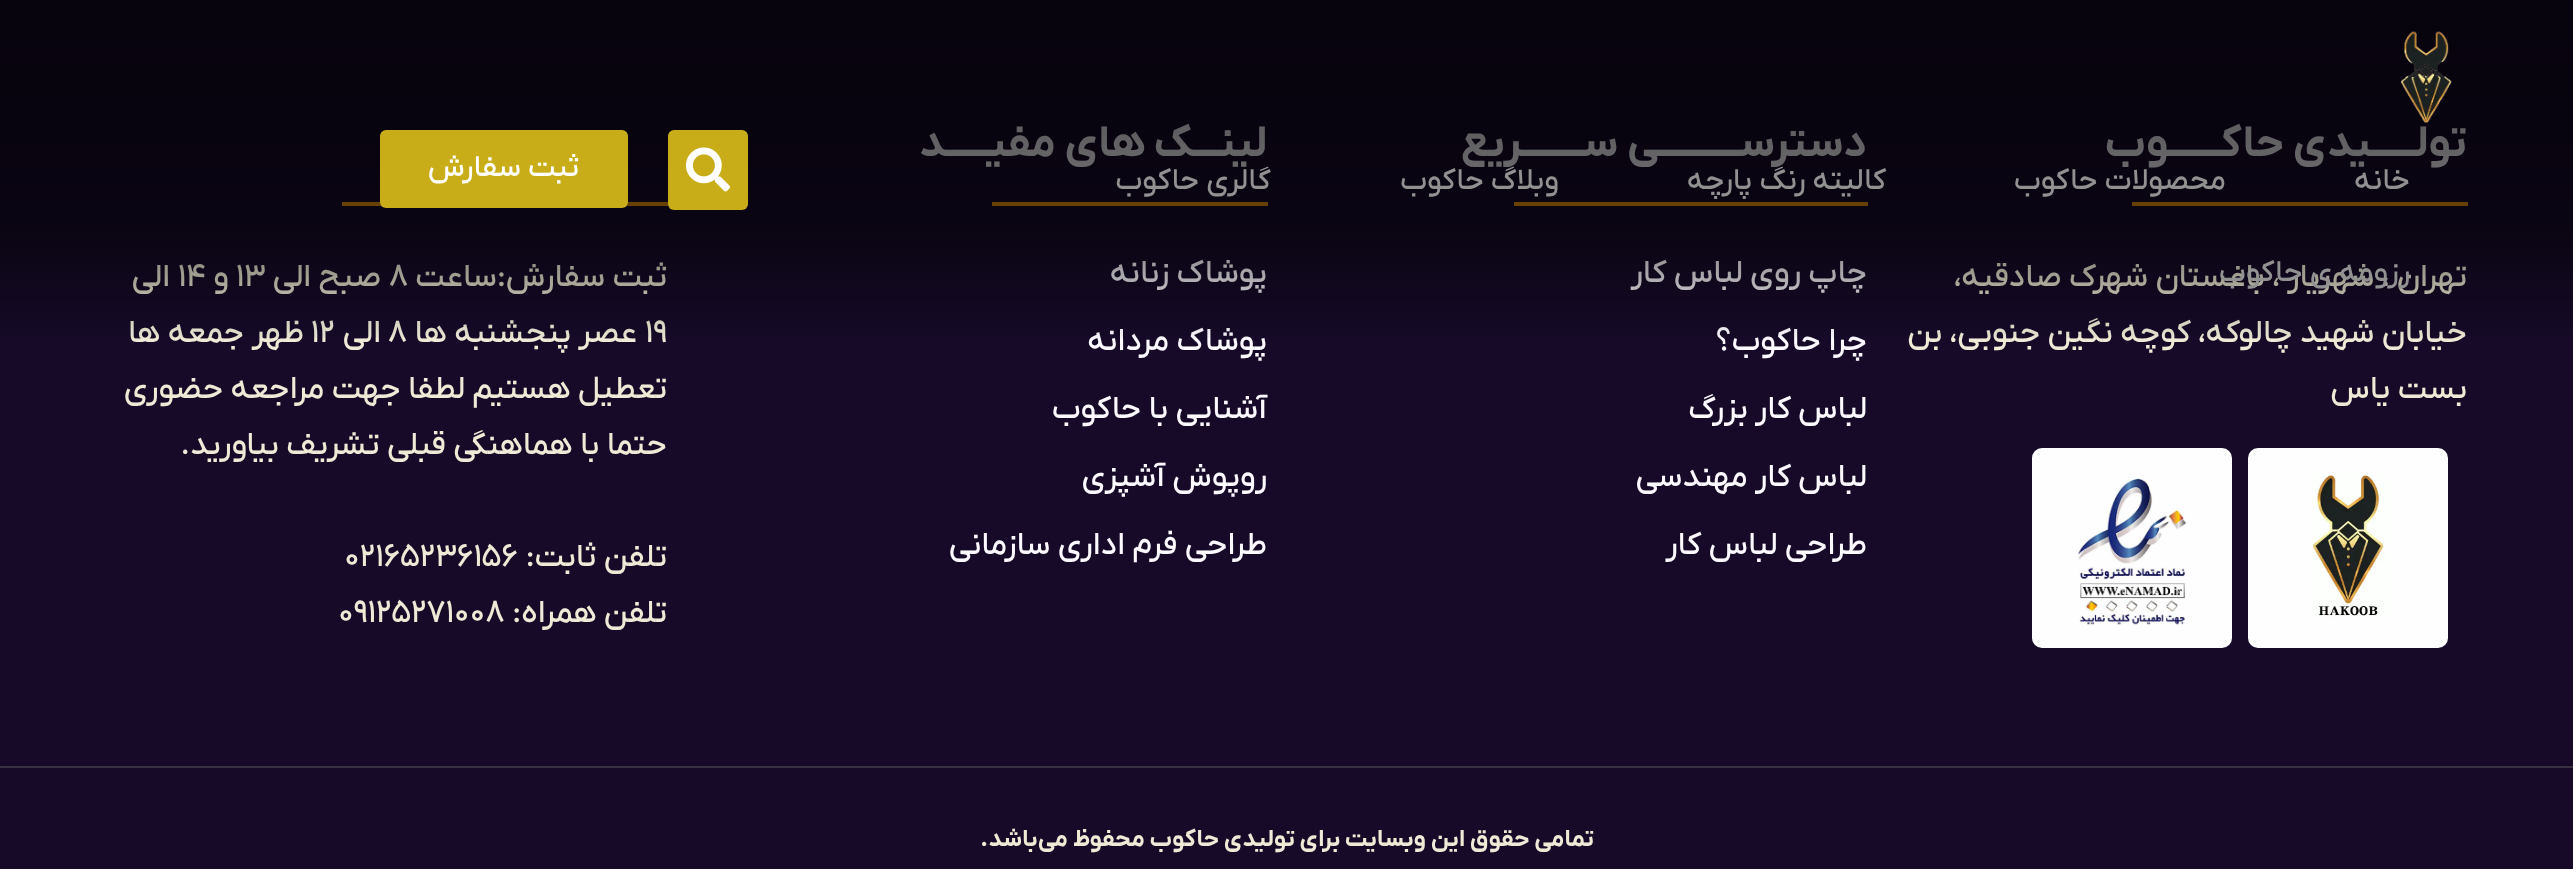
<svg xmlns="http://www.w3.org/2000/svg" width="2573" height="869">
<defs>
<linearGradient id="g1" gradientUnits="userSpaceOnUse" x1="1287" y1="0" x2="1287" y2="338"><stop offset="0" stop-color="#000" stop-opacity="0.68"/><stop offset="0.41" stop-color="#000" stop-opacity="0.62"/><stop offset="0.7" stop-color="#000" stop-opacity="0.51"/><stop offset="1" stop-color="#000" stop-opacity="0.03"/></linearGradient>
</defs>
<rect width="100%" height="100%" fill="#160a28"/>
<text x="2467" y="156" style="font-family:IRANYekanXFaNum;font-size:44px;font-weight:bold;direction:rtl;fill:#fcf9ff">تولـــــیدی حاکــــــوب</text>
<rect x="2132" y="202" width="336" height="4" fill="#e48f09"/>
<text x="2467" y="286" style="font-family:IRANYekanXFaNum;font-size:32px;font-weight:500;direction:rtl;fill:#eeead6">تهران ، شهریار ، باغستان شهرک صادقیه،</text>
<text x="2467" y="342" style="font-family:IRANYekanXFaNum;font-size:32px;font-weight:500;direction:rtl;fill:#eeead6">خیابان شهید چالوکه، کوچه نگین جنوبی، بن</text>
<text x="2467" y="398" style="font-family:IRANYekanXFaNum;font-size:32px;font-weight:500;direction:rtl;fill:#eeead6">بست یاس</text>
<rect x="2248" y="448" width="200" height="200" rx="10" fill="#fffefe"/>
<image x="2312" y="475" width="76" height="143" href="media/1.png"/>
<rect x="2032" y="448" width="200" height="200" rx="10" fill="#fffefe"/>
<image x="2077" y="478" width="110" height="148" href="media/2.png"/>
<text x="1867" y="156" style="font-family:IRANYekanXFaNum;font-size:44px;font-weight:bold;direction:rtl;fill:#fcf9ff">دسترســـــــــی ســـــــریع</text>
<rect x="1514" y="202" width="354" height="4" fill="#e48f09"/>
<text x="1867" y="282" style="font-family:IRANYekanXFaNum;font-size:32px;font-weight:500;direction:rtl;fill:#fcf9ff">چاپ روی لباس کار</text>
<text x="1867" y="350" style="font-family:IRANYekanXFaNum;font-size:32px;font-weight:500;direction:rtl;fill:#fcf9ff">چرا حاکوب؟</text>
<text x="1867" y="418" style="font-family:IRANYekanXFaNum;font-size:32px;font-weight:500;direction:rtl;fill:#fcf9ff">لباس کار بزرگ</text>
<text x="1867" y="486" style="font-family:IRANYekanXFaNum;font-size:32px;font-weight:500;direction:rtl;fill:#fcf9ff">لباس کار مهندسی</text>
<text x="1867" y="554" style="font-family:IRANYekanXFaNum;font-size:32px;font-weight:500;direction:rtl;fill:#fcf9ff">طراحی لباس کار</text>
<text x="1267" y="156" style="font-family:IRANYekanXFaNum;font-size:44px;font-weight:bold;direction:rtl;fill:#fcf9ff">لینـــک های مفیـــــد</text>
<rect x="992" y="202" width="276" height="4" fill="#e48f09"/>
<text x="1267" y="282" style="font-family:IRANYekanXFaNum;font-size:32px;font-weight:500;direction:rtl;fill:#fcf9ff">پوشاک زنانه</text>
<text x="1267" y="350" style="font-family:IRANYekanXFaNum;font-size:32px;font-weight:500;direction:rtl;fill:#fcf9ff">پوشاک مردانه</text>
<text x="1267" y="418" style="font-family:IRANYekanXFaNum;font-size:32px;font-weight:500;direction:rtl;fill:#fcf9ff">آشنایی با حاکوب</text>
<text x="1267" y="486" style="font-family:IRANYekanXFaNum;font-size:32px;font-weight:500;direction:rtl;fill:#fcf9ff">روپوش آشپزی</text>
<text x="1267" y="554" style="font-family:IRANYekanXFaNum;font-size:32px;font-weight:500;direction:rtl;fill:#fcf9ff">طراحی فرم اداری سازمانی</text>
<rect x="342" y="202" width="326" height="4" fill="#e48f09"/>
<text x="667" y="286" style="font-family:IRANYekanXFaNum;font-size:32px;font-weight:500;direction:rtl;fill:#eeead6">ثبت سفارش:ساعت</text>
<text x="389" y="286" style="font-family:IRANYekanXFaNum;font-size:32px;font-weight:500;fill:#eeead6">۸</text>
<text x="381" y="286" style="font-family:IRANYekanXFaNum;font-size:32px;font-weight:500;direction:rtl;fill:#eeead6">صبح الی</text>
<text x="236" y="286" style="font-family:IRANYekanXFaNum;font-size:32px;font-weight:500;fill:#eeead6">۱۳</text>
<text x="229" y="286" style="font-family:IRANYekanXFaNum;font-size:32px;font-weight:500;direction:rtl;fill:#eeead6">و</text>
<text x="178" y="286" style="font-family:IRANYekanXFaNum;font-size:32px;font-weight:500;fill:#eeead6">۱۴</text>
<text x="170" y="286" style="font-family:IRANYekanXFaNum;font-size:32px;font-weight:500;direction:rtl;fill:#eeead6">الی</text>
<text x="645" y="342" style="font-family:IRANYekanXFaNum;font-size:32px;font-weight:500;fill:#eeead6">۱۹</text>
<text x="637" y="342" style="font-family:IRANYekanXFaNum;font-size:32px;font-weight:500;direction:rtl;fill:#eeead6">عصر پنجشنبه ها</text>
<text x="388" y="342" style="font-family:IRANYekanXFaNum;font-size:32px;font-weight:500;fill:#eeead6">۸</text>
<text x="381" y="342" style="font-family:IRANYekanXFaNum;font-size:32px;font-weight:500;direction:rtl;fill:#eeead6">الی</text>
<text x="311" y="342" style="font-family:IRANYekanXFaNum;font-size:32px;font-weight:500;fill:#eeead6">۱۲</text>
<text x="304" y="342" style="font-family:IRANYekanXFaNum;font-size:32px;font-weight:500;direction:rtl;fill:#eeead6">ظهر</text>
<text x="244" y="342" style="font-family:IRANYekanXFaNum;font-size:32px;font-weight:500;direction:rtl;fill:#eeead6">جمعه ها</text>
<text x="667" y="398" style="font-family:IRANYekanXFaNum;font-size:32px;font-weight:500;direction:rtl;fill:#eeead6">تعطیل هستیم</text>
<text x="465" y="398" style="font-family:IRANYekanXFaNum;font-size:32px;font-weight:500;direction:rtl;fill:#eeead6">لطفا جهت مراجعه حضوری</text>
<text x="667" y="454" style="font-family:IRANYekanXFaNum;font-size:32px;font-weight:500;direction:rtl;fill:#eeead6">حتما با هماهنگی قبلی تشریف بیاورید.</text>
<text x="667" y="566" style="font-family:IRANYekanXFaNum;font-size:32px;font-weight:500;direction:rtl;fill:#eeead6">تلفن ثابت:</text>
<text x="344" y="566" style="font-family:IRANYekanXFaNum;font-size:32px;font-weight:500;fill:#eeead6">02165236156</text>
<text x="667" y="622" style="font-family:IRANYekanXFaNum;font-size:32px;font-weight:500;direction:rtl;fill:#eeead6">تلفن همراه:</text>
<text x="338" y="622" style="font-family:IRANYekanXFaNum;font-size:32px;font-weight:500;fill:#eeead6">09125271008</text>
<rect y="766" width="2573" height="2" fill="#373043"/>
<text x="1594" y="846" style="font-family:IRANYekanXFaNum;font-size:24px;font-weight:bold;direction:rtl;fill:#eeead6">تمامی حقوق این وبسایت برای تولیدی حاکوب محفوظ می‌باشد.</text>
<rect width="2573" height="338" fill="url(#g1)"/>
<image x="2401" y="31" width="51" height="92" href="media/3.png"/>
<text x="2410" y="189" style="font-family:IRANYekanXFaNum;font-size:30px;font-weight:500;direction:rtl;fill:#919191">خانه</text>
<text x="2226" y="189" style="font-family:IRANYekanXFaNum;font-size:30px;font-weight:500;direction:rtl;fill:#919191">محصولات حاکوب</text>
<text x="1886" y="189" style="font-family:IRANYekanXFaNum;font-size:30px;font-weight:500;direction:rtl;fill:#919191">کالیته رنگ پارچه</text>
<text x="1559" y="189" style="font-family:IRANYekanXFaNum;font-size:30px;font-weight:500;direction:rtl;fill:#919191">وبلاگ حاکوب</text>
<text x="1271" y="189" style="font-family:IRANYekanXFaNum;font-size:30px;font-weight:500;direction:rtl;fill:#919191">گالری حاکوب</text>
<text x="2410" y="281" style="font-family:IRANYekanXFaNum;font-size:30px;font-weight:500;direction:rtl;fill:#919191">رزومه ی حاکوب</text>
<rect x="668" y="130" width="80" height="80" rx="6" fill="#c9ad18"/>
<image x="686" y="147" width="44" height="45" href="media/4.png"/>
<rect x="380" y="130" width="248" height="78" rx="6" fill="#c9ad18"/>
<text x="579" y="176" style="font-family:IRANYekanXFaNum;font-size:30px;font-weight:500;direction:rtl;fill:#fff">ثبت سفارش</text>
</svg>
